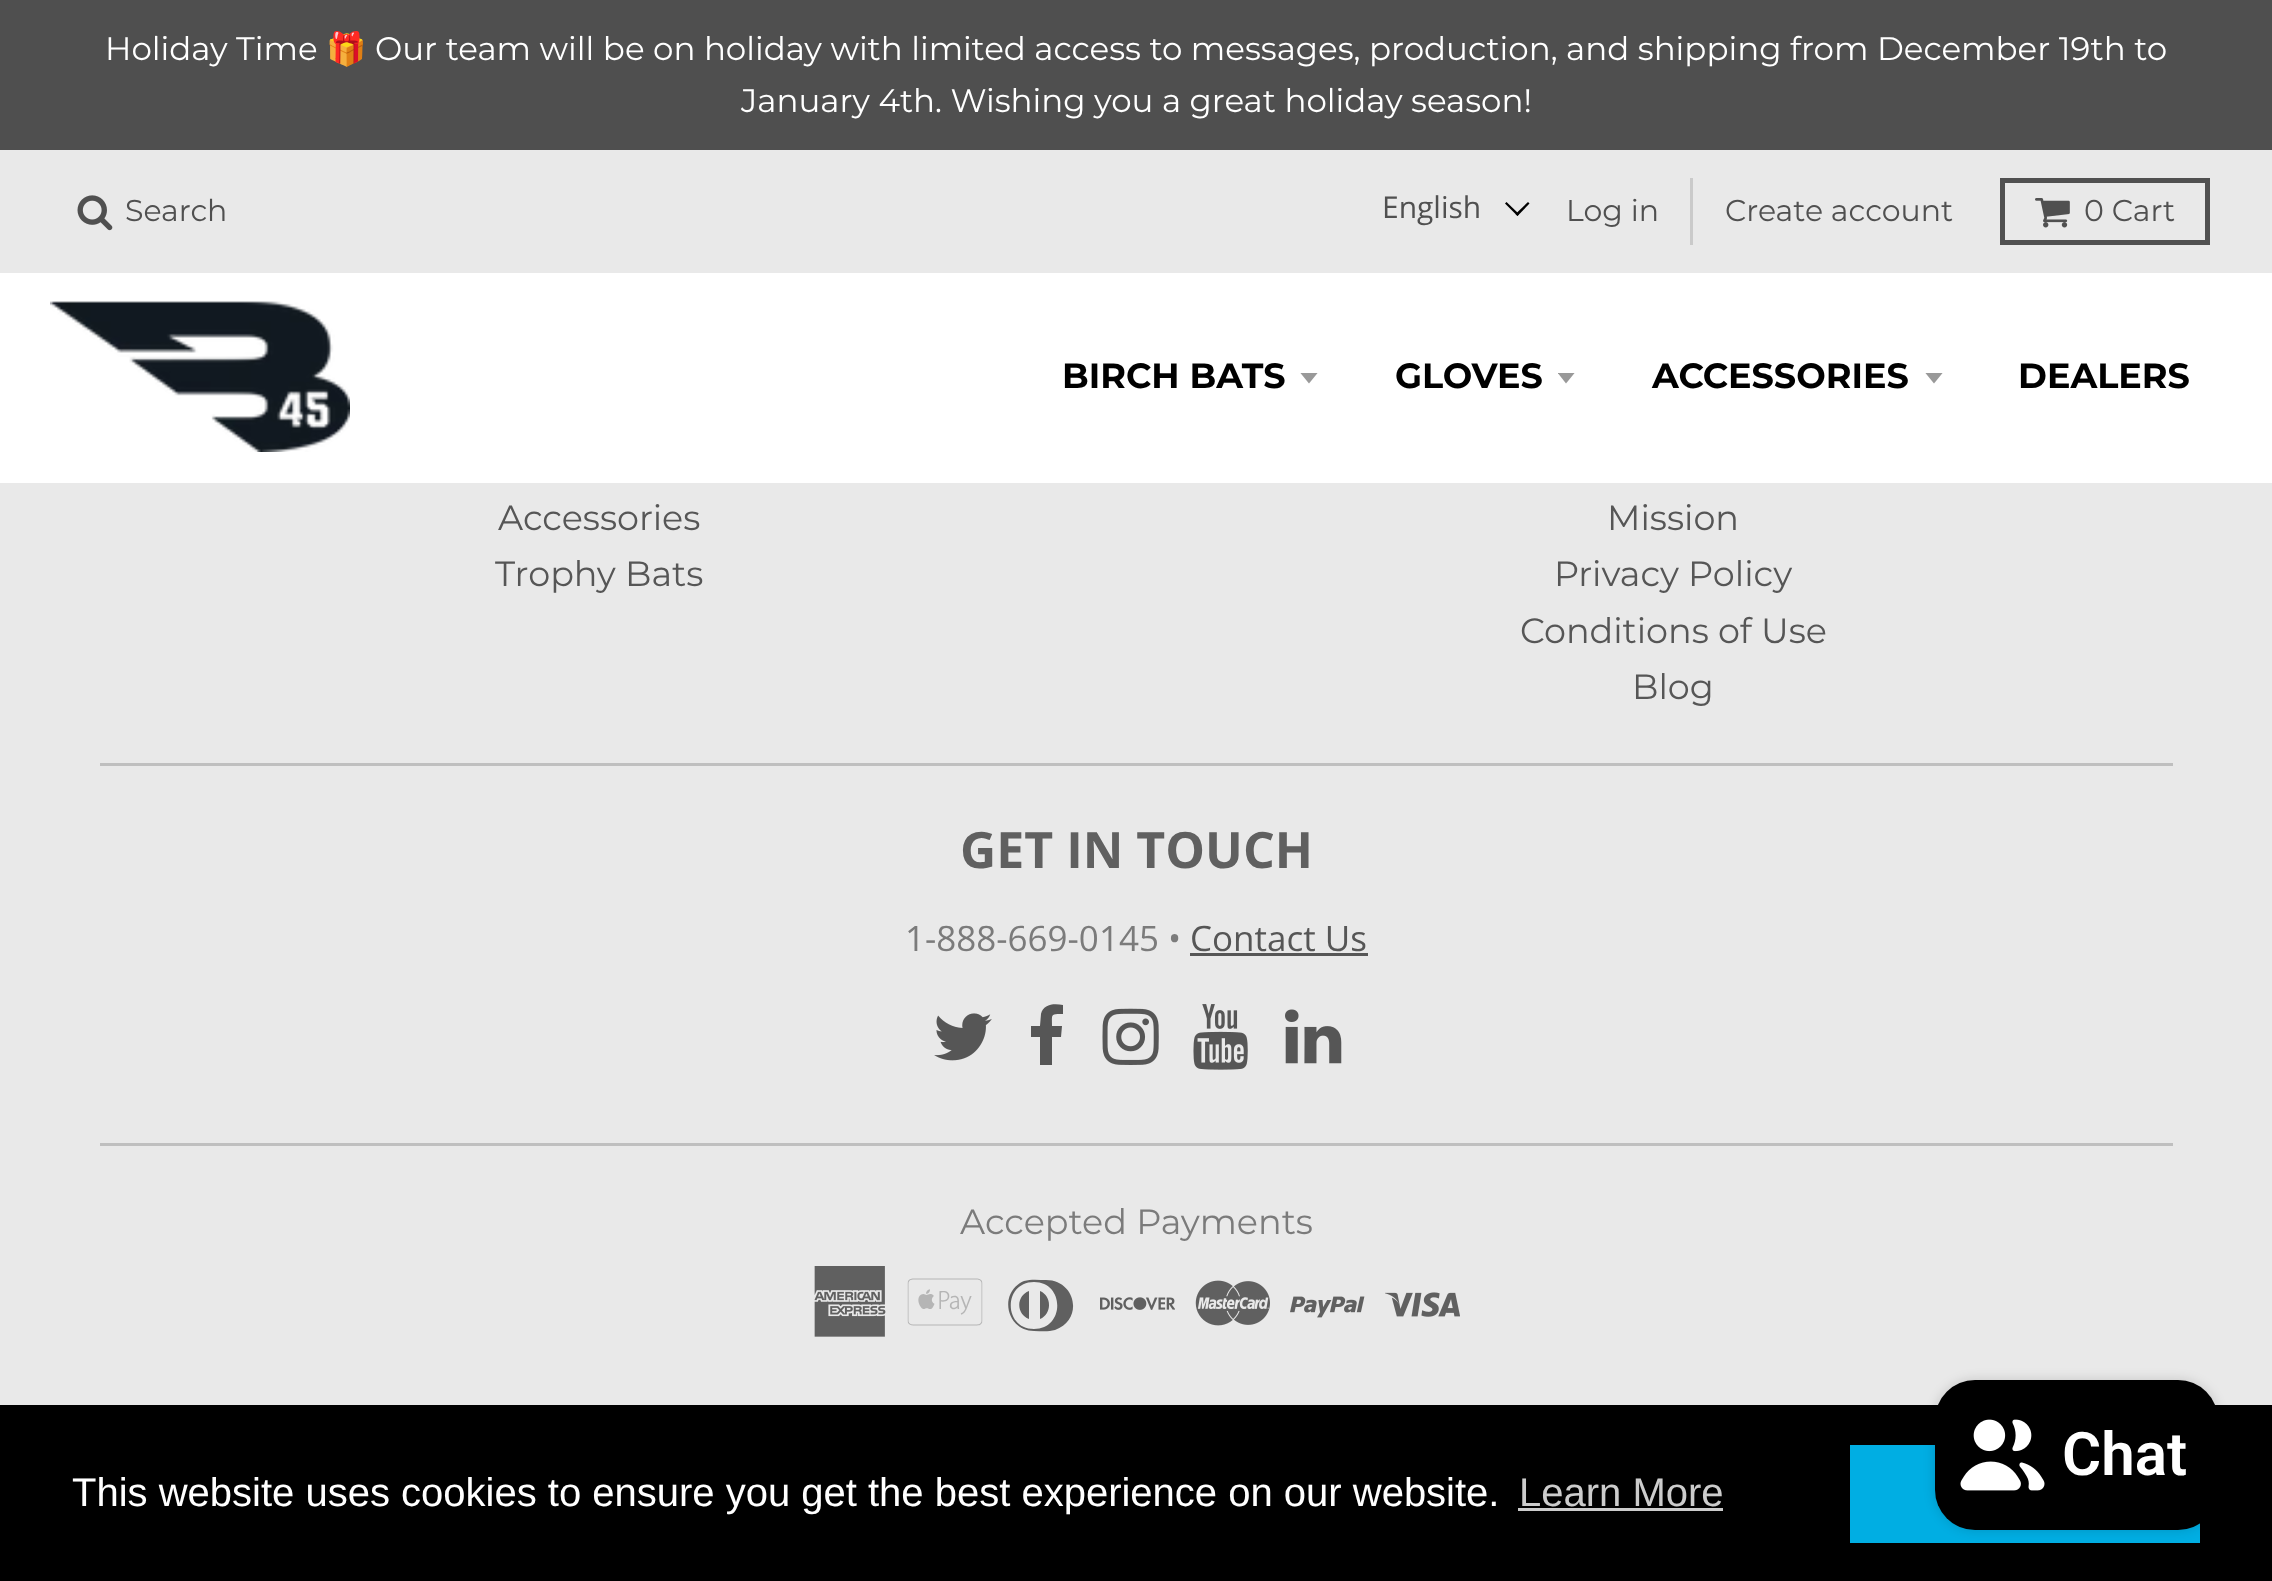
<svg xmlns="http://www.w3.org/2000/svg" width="2272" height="1581">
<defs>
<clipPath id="clip1"><rect x="1300" y="373" width="20" height="12"/></clipPath>
<clipPath id="clip2"><rect x="1558" y="373" width="20" height="12"/></clipPath>
<clipPath id="clip3"><rect x="1925" y="373" width="20" height="12"/></clipPath>
</defs>
<rect width="100%" height="100%" fill="#e9e9e9"/>
<rect width="2272" height="150" fill="#4f4f4f"/>
<text x="105" y="60" style="font-family:Montserrat;font-size:32.5px;fill:#fff">Holiday Time</text>
<text x="326" y="60" style="font-family:Noto Color Emoji;font-size:32.5px;fill:#fff">🎁</text>
<text x="375" y="60" style="font-family:Montserrat;font-size:32.5px;fill:#fff">Our team will be on holiday with limited access to messages, production, and shipping from December 19th to</text>
<text x="741" y="112" style="font-family:Montserrat;font-size:32.5px;fill:#fff">January 4th. Wishing you a great holiday season!</text>
<image x="77" y="195" width="36" height="36" href="media/1.png"/>
<text x="125" y="221" style="font-family:Montserrat;font-size:30px;fill:#505050">Search</text>
<text x="1382" y="218" style="font-family:Open Sans;font-size:30px;fill:#505050">English</text>
<path d="M1528 202l1.5 1.5l-12 12.5l-2-2z" fill="#000"/>
<path d="M1506.5 202l12.5 12l-1.5 2l-12.5-12.5z" fill="#000"/>
<rect x="1690" y="178" width="3" height="67" fill="#cacaca"/>
<text x="1566" y="221" style="font-family:Montserrat;font-size:30px;fill:#505050">Log in</text>
<text x="1725" y="221" style="font-family:Montserrat;font-size:30px;fill:#505050">Create account</text>
<rect x="2002.5" y="180.5" width="205" height="62" fill="none" stroke="#505050" stroke-width="5"/>
<image x="2035" y="198" width="35" height="30" href="media/2.png"/>
<text x="2084" y="221" style="font-family:Montserrat;font-size:30px;fill:#505050">0 Cart</text>
<rect y="273" width="2272" height="210" fill="#fff"/>
<image x="50" y="301" width="300" height="151" href="media/3.png"/>
<text x="1062" y="388" style="font-family:Montserrat;font-size:35px;font-weight:bold;fill:#000">BIRCH BATS</text>
<g clip-path="url(#clip1)">
<path d="M1300 372.5l9 11l9-11z" fill="#999"/>
</g>
<text x="1395" y="388" style="font-family:Montserrat;font-size:35px;font-weight:bold;fill:#000">GLOVES</text>
<g clip-path="url(#clip2)">
<path d="M1557.5 372.5l8.5 11l9-11z" fill="#999"/>
</g>
<text x="1652" y="388" style="font-family:Montserrat;font-size:35px;font-weight:bold;fill:#000">ACCESSORIES</text>
<g clip-path="url(#clip3)">
<path d="M1925 372.5l9 11l9-11z" fill="#999"/>
</g>
<text x="2018" y="388" style="font-family:Montserrat;font-size:35px;font-weight:bold;fill:#000">DEALERS</text>
<text x="498" y="530" style="font-family:Montserrat;font-size:35px;fill:#565656">Accessories</text>
<text x="495" y="586" style="font-family:Montserrat;font-size:35px;fill:#565656">Trophy Bats</text>
<text x="1607" y="530" style="font-family:Montserrat;font-size:35px;fill:#565656">Mission</text>
<text x="1554" y="586" style="font-family:Montserrat;font-size:35px;fill:#565656">Privacy Policy</text>
<text x="1520" y="643" style="font-family:Montserrat;font-size:35px;fill:#565656">Conditions of Use</text>
<text x="1632" y="699" style="font-family:Montserrat;font-size:35px;fill:#565656">Blog</text>
<rect x="100" y="763" width="2073" height="3" fill="#bfbfbf"/>
<text x="960" y="868" style="font-family:Open Sans;font-size:50px;font-weight:bold;fill:#606060">GET IN TOUCH</text>
<text x="905" y="951" style="font-family:Open Sans;font-size:35px;fill:#7b7b7b">1-888-669-0145 •</text>
<text x="1190" y="951" style="font-family:Open Sans;font-size:35px;fill:#565656">Contact Us</text>
<rect x="1190" y="953" width="178" height="3" fill="#565656"/>
<image x="934" y="1013" width="58" height="48" href="media/4.png"/>
<path d="M1063 1005v9c-13 0-11 0-11 12h10l-1 11h-9v28h-12v-28h-9v-11h9l1-12c2-10 13-11 22-9z" fill="#565656"/>
<image x="1102" y="1008" width="57" height="57" href="media/5.png"/>
<image x="1193" y="1004" width="55" height="66" href="media/6.png"/>
<image x="1285" y="1009" width="57" height="55" href="media/7.png"/>
<rect x="100" y="1143" width="2073" height="3" fill="#bfbfbf"/>
<text x="960" y="1234" style="font-family:Montserrat;font-size:35px;fill:#7b7b7b">Accepted Payments</text>
<image x="814" y="1266" width="72" height="71" href="media/8.png"/>
<image x="907" y="1278" width="76" height="48" href="media/9.png"/>
<path d="M1046 1280c30 0 38 40 9 50c-7 2-14 1-21 1c-28 0-36-39-10-50c7-2 15-1 22-1zm-12 49c31 0 31-47 0-47c-31 0-31 47 0 47zm-5-10c-13-5-13-23 0-28zm11-28c12 5 12 23 0 28z" fill="#606060"/>
<image x="1100" y="1297" width="75" height="13" href="media/10.png"/>
<image x="1195" y="1280" width="75" height="46" href="media/11.png"/>
<image x="1290" y="1296" width="75" height="22" href="media/12.png"/>
<image x="1385" y="1292" width="75" height="25" href="media/13.png"/>
<rect y="1405" width="2272" height="176" fill="#000"/>
<rect x="1850" y="1445" width="350" height="98" fill="#00aee3"/>
<rect x="1935" y="1380" width="283" height="150" rx="40" fill="#00000026" filter="blur(6px)"/>
<rect x="1935" y="1380" width="283" height="150" rx="40" fill="#000"/>
<image x="1960" y="1419" width="85" height="72" href="media/14.png"/>
<text x="2062" y="1475" style="font-family:Roboto;font-size:60px;font-weight:600;fill:#fff">Chat</text>
<text x="72" y="1506" style="font-family:Liberation Sans;font-size:40px;fill:#fff">This website uses cookies to ensure you get the best experience on our website.</text>
<text x="1519" y="1506" style="font-family:Liberation Sans;font-size:40px;fill:#ccc">Learn More</text>
<rect x="1518" y="1508" width="205" height="3" fill="#ccc"/>
</svg>
